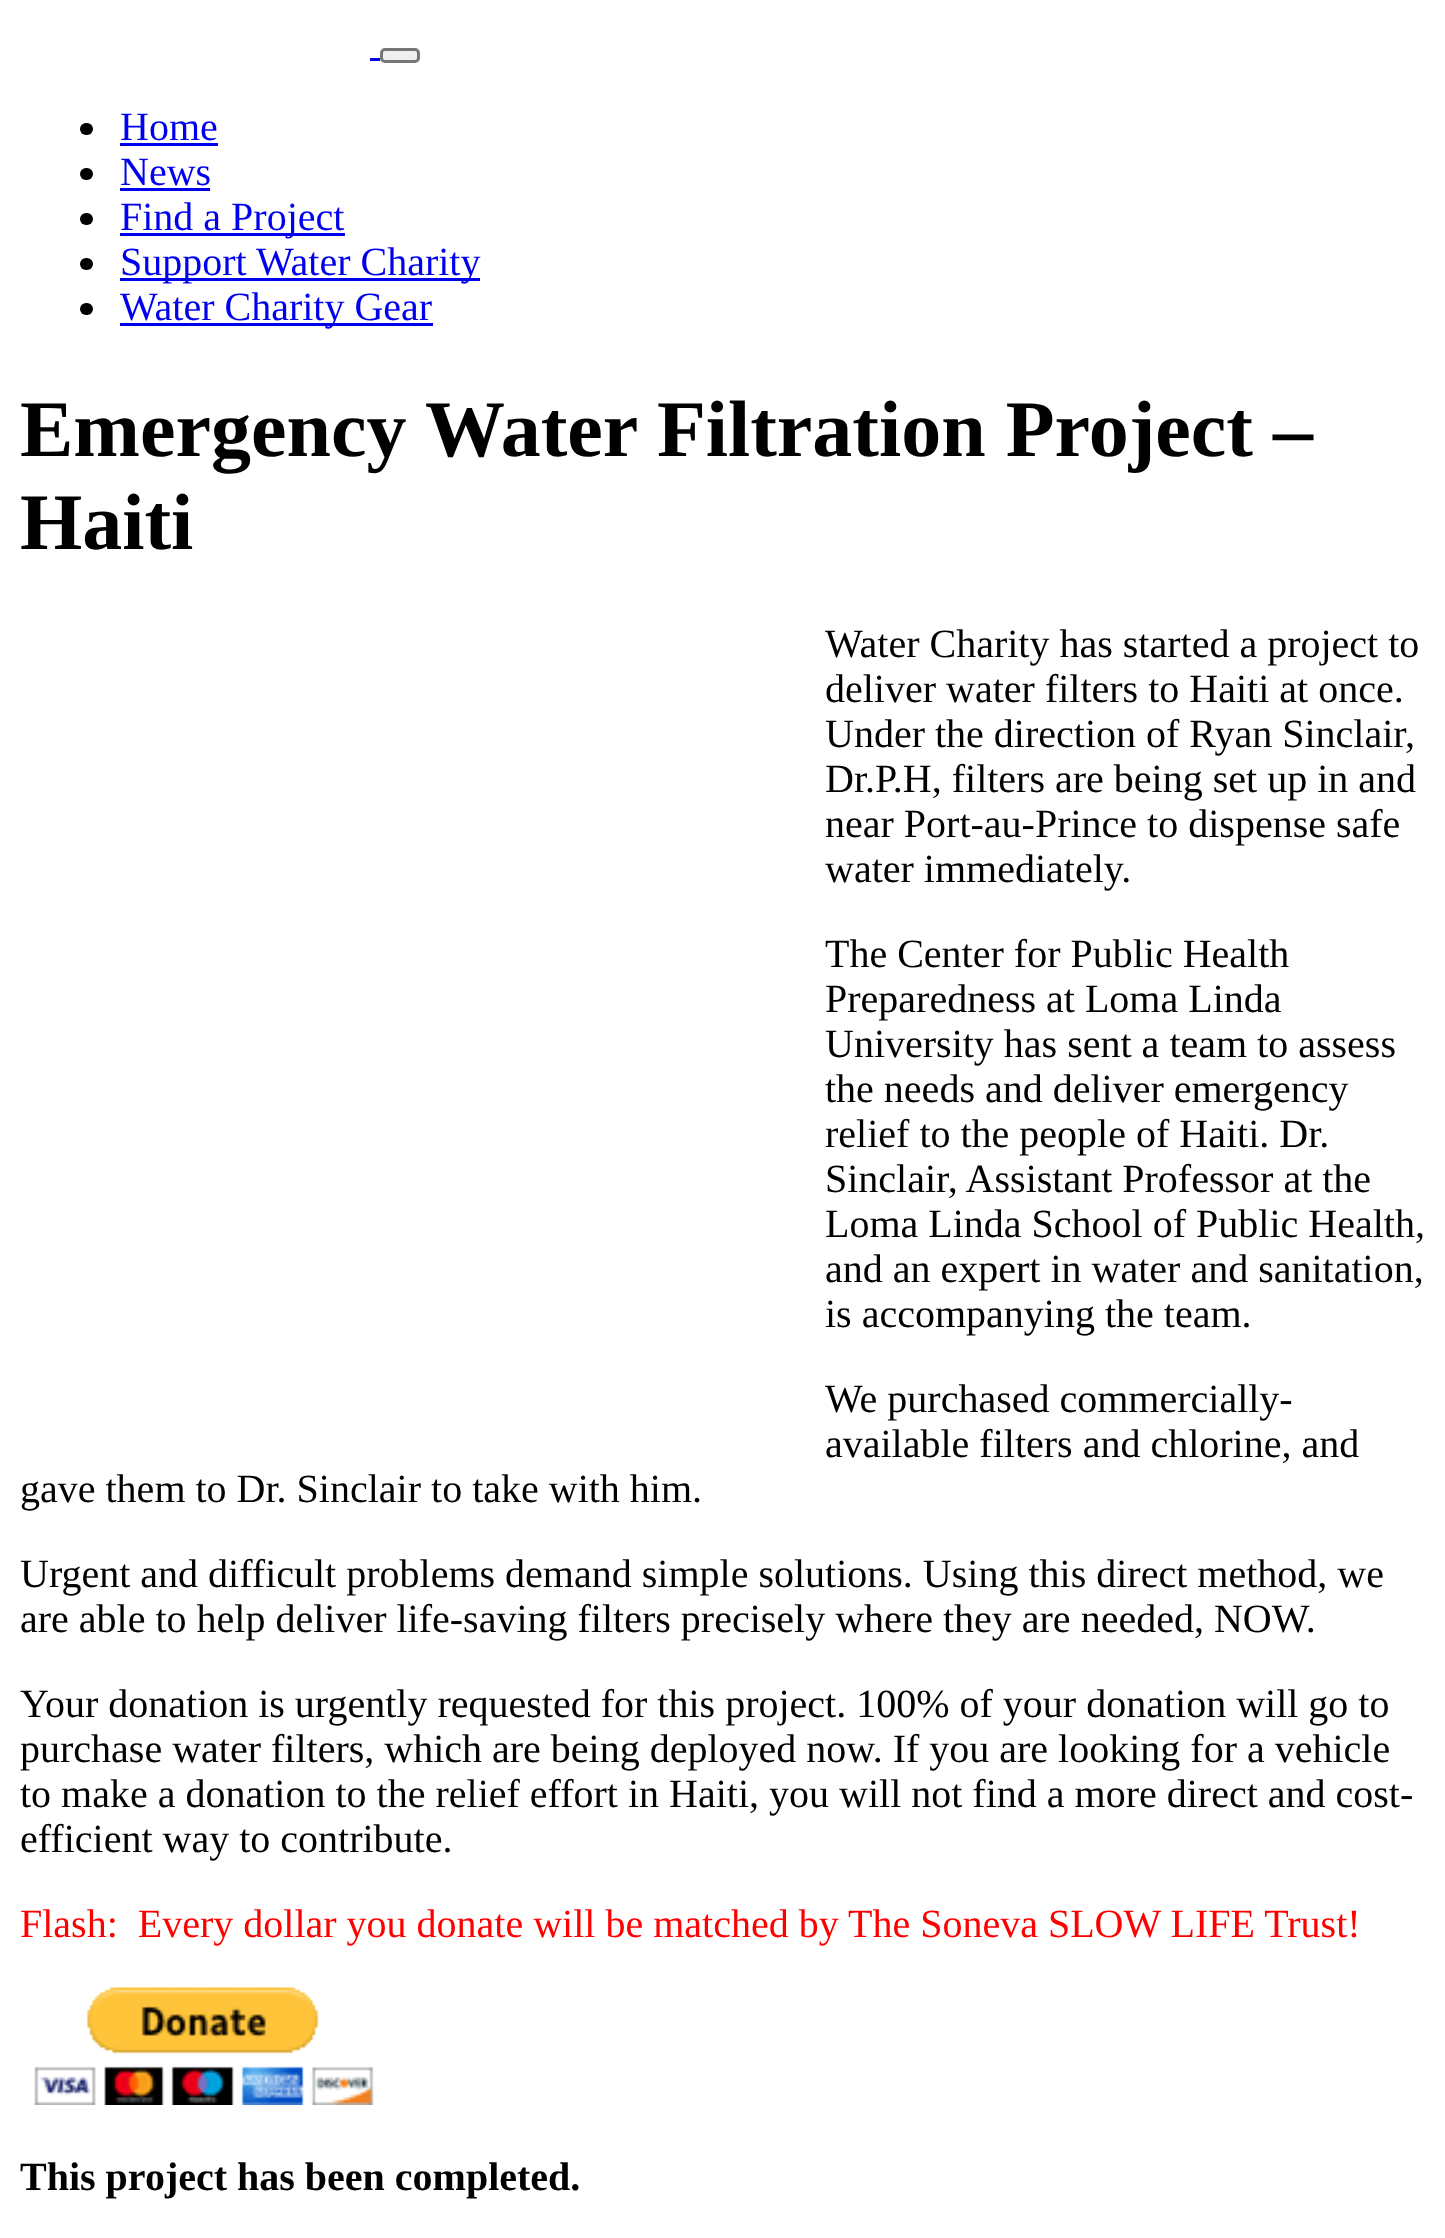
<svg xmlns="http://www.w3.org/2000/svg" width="1445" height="2238">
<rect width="100%" height="100%" fill="#fff"/>
<rect x="370" y="58" width="10" height="3" fill="#00e"/>
<rect x="381.5" y="49.5" width="37" height="12" rx="3.5" fill="#efefef" stroke="#767676" stroke-width="3"/>
<rect x="80" y="123" width="13" height="12" rx="6" fill="#000"/>
<text x="120" y="140" style="font-family:Liberation Serif;font-size:40px;fill:#00e">Home</text>
<rect x="120" y="143" width="98" height="3" fill="#00e"/>
<rect x="80" y="168" width="13" height="12" rx="6" fill="#000"/>
<text x="120" y="185" style="font-family:Liberation Serif;font-size:40px;fill:#00e">News</text>
<rect x="120" y="188" width="90" height="3" fill="#00e"/>
<rect x="80" y="213" width="13" height="12" rx="6" fill="#000"/>
<rect x="120" y="233" width="225" height="3" fill="#00e"/>
<text x="120" y="230" style="font-family:Liberation Serif;font-size:40px;fill:#00e">Find a Project</text>
<rect x="80" y="258" width="13" height="12" rx="6" fill="#000"/>
<rect x="120" y="278" width="360" height="3" fill="#00e"/>
<text x="120" y="275" style="font-family:Liberation Serif;font-size:40px;fill:#00e">Support Water Charity</text>
<rect x="80" y="303" width="13" height="12" rx="6" fill="#000"/>
<rect x="120" y="323" width="313" height="3" fill="#00e"/>
<text x="120" y="320" style="font-family:Liberation Serif;font-size:40px;fill:#00e">Water Charity Gear</text>
<text x="20" y="456" style="font-family:Liberation Serif;font-size:80px;font-weight:bold;fill:#000">Emergency Water Filtration Project –</text>
<text x="20" y="549" style="font-family:Liberation Serif;font-size:80px;font-weight:bold;fill:#000">Haiti</text>
<text x="825" y="657" style="font-family:Liberation Serif;font-size:40px;fill:#000">Water Charity has started a project to</text>
<text x="825" y="702" style="font-family:Liberation Serif;font-size:40px;fill:#000">deliver water filters to Haiti at once.</text>
<text x="825" y="747" style="font-family:Liberation Serif;font-size:40px;fill:#000">Under the direction of Ryan Sinclair,</text>
<text x="825" y="792" style="font-family:Liberation Serif;font-size:40px;fill:#000">Dr.P.H, filters are being set up in and</text>
<text x="825" y="837" style="font-family:Liberation Serif;font-size:40px;fill:#000">near Port-au-Prince to dispense safe</text>
<text x="825" y="882" style="font-family:Liberation Serif;font-size:40px;fill:#000">water immediately.</text>
<text x="825" y="967" style="font-family:Liberation Serif;font-size:40px;fill:#000">The Center for Public Health</text>
<text x="825" y="1012" style="font-family:Liberation Serif;font-size:40px;fill:#000">Preparedness at Loma Linda</text>
<text x="825" y="1057" style="font-family:Liberation Serif;font-size:40px;fill:#000">University has sent a team to assess</text>
<text x="825" y="1102" style="font-family:Liberation Serif;font-size:40px;fill:#000">the needs and deliver emergency</text>
<text x="825" y="1147" style="font-family:Liberation Serif;font-size:40px;fill:#000">relief to the people of Haiti. Dr.</text>
<text x="825" y="1192" style="font-family:Liberation Serif;font-size:40px;fill:#000">Sinclair, Assistant Professor at the</text>
<text x="825" y="1237" style="font-family:Liberation Serif;font-size:40px;fill:#000">Loma Linda School of Public Health,</text>
<text x="825" y="1282" style="font-family:Liberation Serif;font-size:40px;fill:#000">and an expert in water and sanitation,</text>
<text x="825" y="1327" style="font-family:Liberation Serif;font-size:40px;fill:#000">is accompanying the team.</text>
<text x="825" y="1412" style="font-family:Liberation Serif;font-size:40px;fill:#000">We purchased commercially-</text>
<text x="825" y="1457" style="font-family:Liberation Serif;font-size:40px;fill:#000">available filters and chlorine, and</text>
<text x="20" y="1502" style="font-family:Liberation Serif;font-size:40px;fill:#000">gave them to Dr. Sinclair to take with him.</text>
<text x="20" y="1587" style="font-family:Liberation Serif;font-size:40px;fill:#000">Urgent and difficult problems demand simple solutions. Using this direct method, we</text>
<text x="20" y="1632" style="font-family:Liberation Serif;font-size:40px;fill:#000">are able to help deliver life-saving filters precisely where they are needed, NOW.</text>
<text x="20" y="1717" style="font-family:Liberation Serif;font-size:40px;fill:#000">Your donation is urgently requested for this project. 100% of your donation will go to</text>
<text x="20" y="1762" style="font-family:Liberation Serif;font-size:40px;fill:#000">purchase water filters, which are being deployed now. If you are looking for a vehicle</text>
<text x="20" y="1807" style="font-family:Liberation Serif;font-size:40px;fill:#000">to make a donation to the relief effort in Haiti, you will not find a more direct and cost-</text>
<text x="20" y="1852" style="font-family:Liberation Serif;font-size:40px;fill:#000">efficient way to contribute.</text>
<text x="20" y="1937" style="font-family:Liberation Serif;font-size:40px;fill:#f00" xml:space="preserve">Flash:  Every dollar you donate will be matched by The Soneva SLOW LIFE Trust!</text>
<image x="34" y="1987" width="340" height="118" href="media/1.png"/>
<text x="20" y="2190" style="font-family:Liberation Serif;font-size:40px;font-weight:bold;fill:#000">This project has been completed.</text>
</svg>
